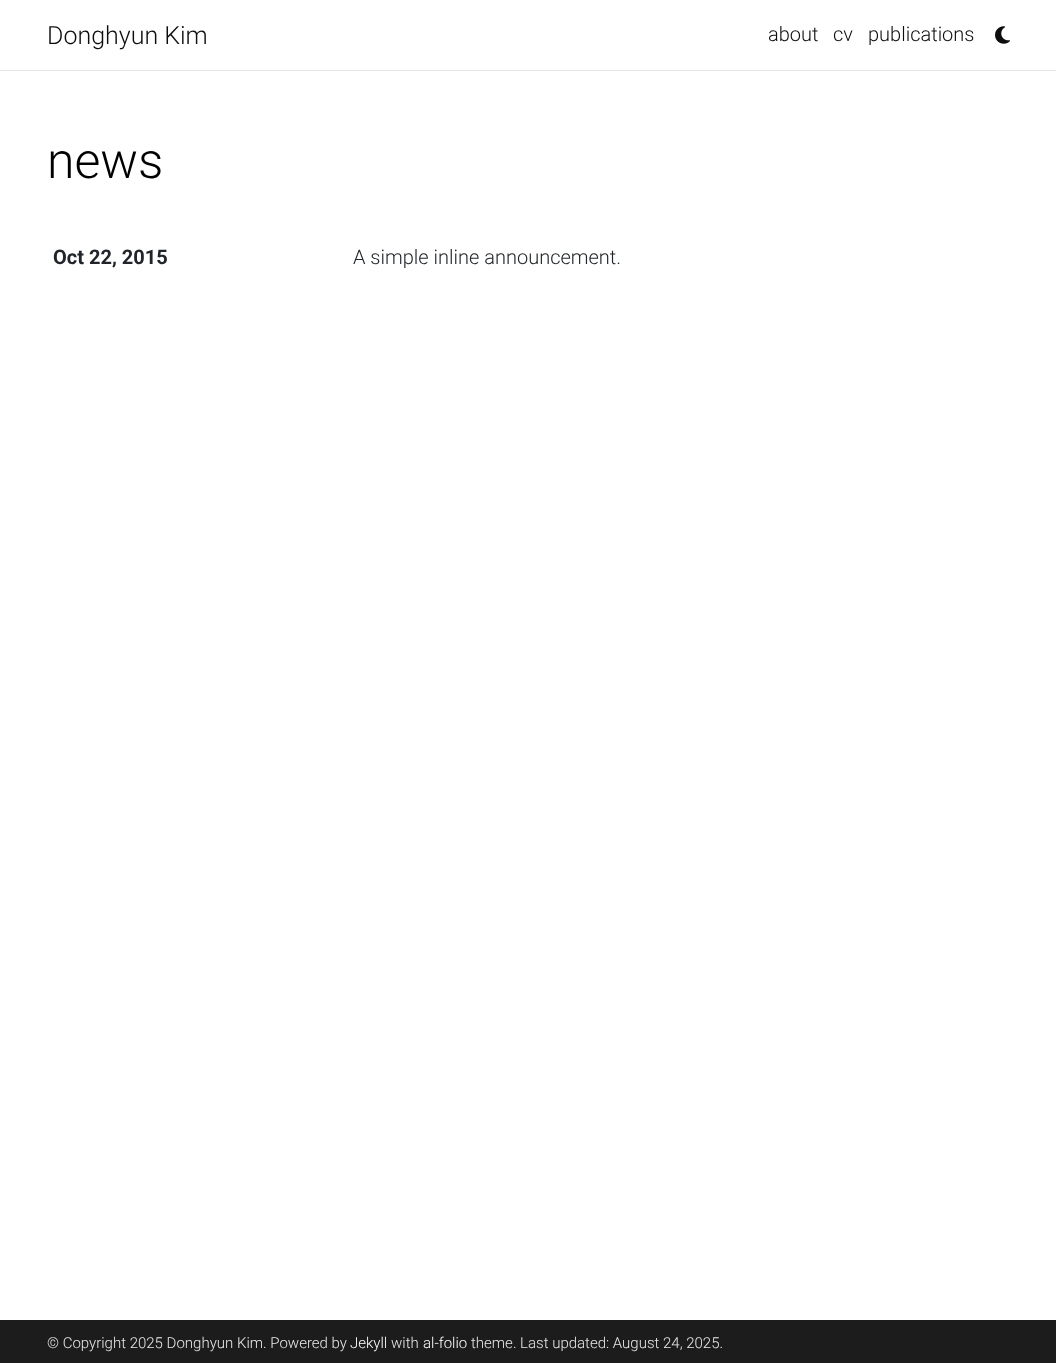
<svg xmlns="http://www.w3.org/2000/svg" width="1056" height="1363">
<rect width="100%" height="100%" fill="#fff"/>
<rect y="70" width="1056" height="1" fill="#e7e7e7"/>
<text x="47" y="44" style="font-family:Roboto;font-size:25px;font-weight:300;fill:#0d0d0d">Donghyun Kim</text>
<text x="768" y="41" style="font-family:Roboto;font-size:20px;font-weight:300;fill:#0d0d0d">about</text>
<text x="833" y="41" style="font-family:Roboto;font-size:20px;font-weight:300;fill:#0d0d0d">cv</text>
<text x="868" y="41" style="font-family:Roboto;font-size:20px;font-weight:300;fill:#0d0d0d">publications</text>
<image x="995" y="26" width="15" height="18" href="media/1.png"/>
<text x="47" y="178" style="font-family:Roboto;font-size:50px;font-weight:300;fill:#000">news</text>
<text x="53" y="264" style="font-family:Roboto;font-size:20px;font-weight:bold;fill:#212529">Oct 22, 2015</text>
<text x="353" y="264" style="font-family:Roboto;font-size:20px;font-weight:300;fill:#212529">A simple inline announcement.</text>
<rect y="1320" width="1056" height="43" fill="#1c1c1d"/>
<text x="47" y="1348" style="font-family:Roboto;font-size:15px;font-weight:300;fill:#e8e8e8">© Copyright 2025 Donghyun Kim. Powered by</text>
<text x="350" y="1348" style="font-family:Roboto;font-size:15px;font-weight:300;fill:#fff">Jekyll</text>
<text x="391" y="1348" style="font-family:Roboto;font-size:15px;font-weight:300;fill:#e8e8e8">with</text>
<text x="423" y="1348" style="font-family:Roboto;font-size:15px;font-weight:300;fill:#fff">al-folio</text>
<text x="471" y="1348" style="font-family:Roboto;font-size:15px;font-weight:300;fill:#e8e8e8">theme. Last updated: August 24, 2025.</text>
</svg>
